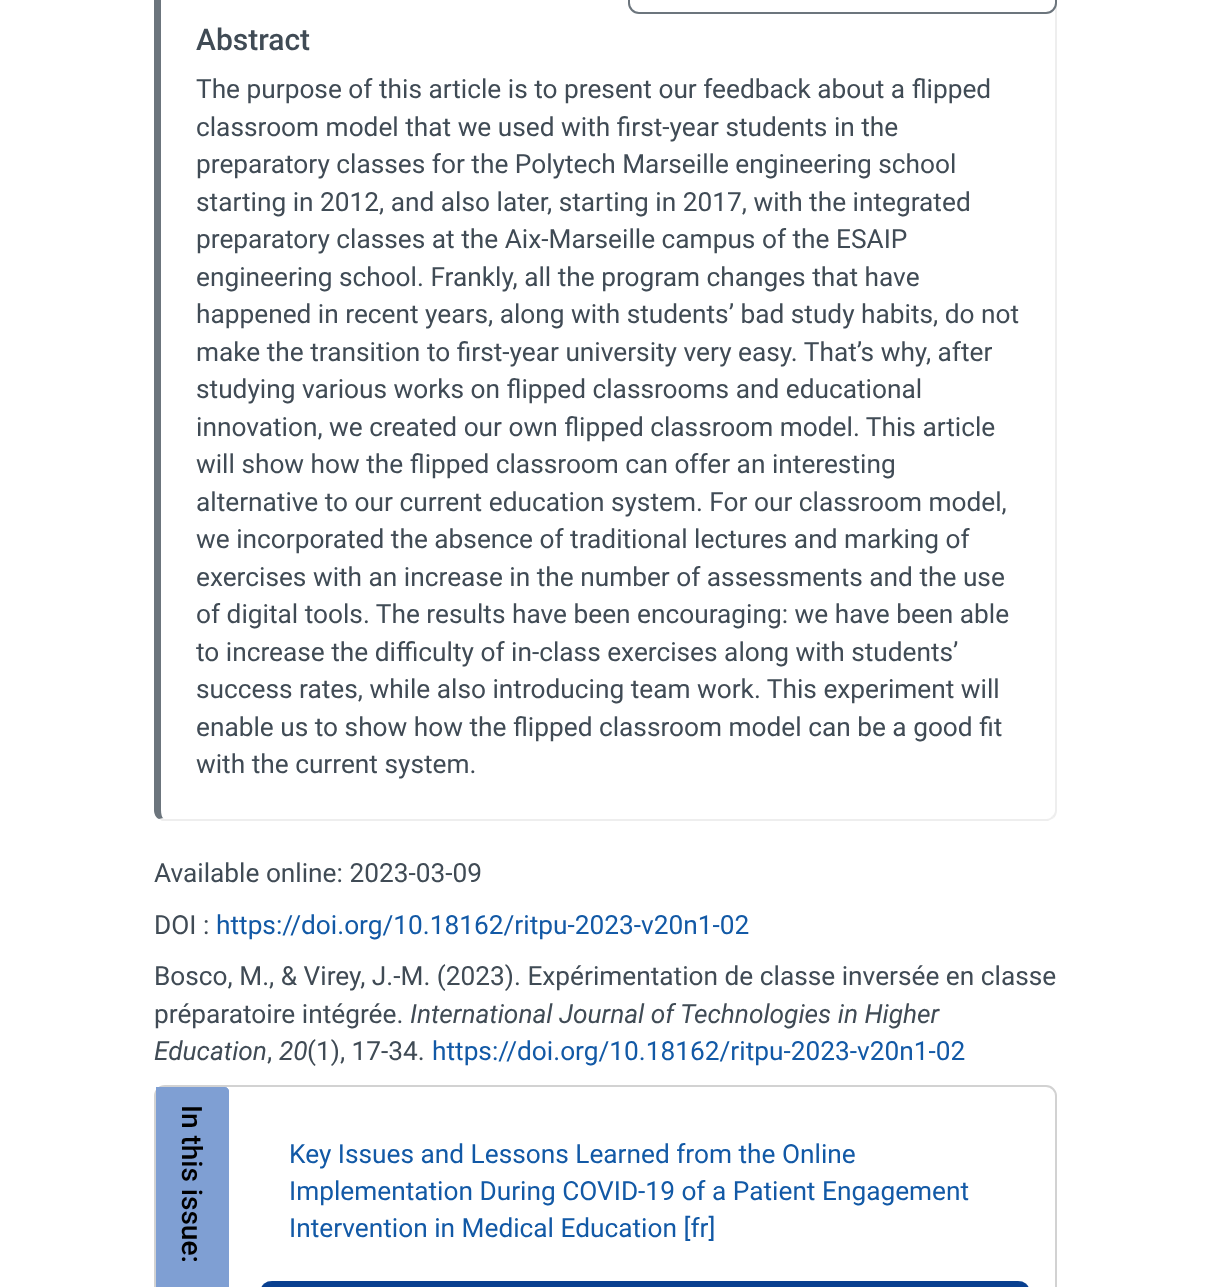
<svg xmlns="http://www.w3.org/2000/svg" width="1211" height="1287">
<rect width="100%" height="100%" fill="#fff"/>
<path d="M1057 810v-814c0-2-1-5-3-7l-2 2c2 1 3 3 3 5v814c0 2-1 5-3 6l2 2c2-2 3-5 3-8z" fill="#eee"/>
<rect x="629" y="-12" width="427" height="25" rx="10" fill="#fff" stroke="#6c757d" stroke-width="2"/>
<path d="M162 821l-3-2l4-1l1 1h882c3 0 5-1 6-3l2 2c-2 1-4 2-6 3z" fill="#eee"/>
<path d="M154-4v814c0 4 2 8 5 9l4-1c-1-1-2-4-2-8v-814c0-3 1-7 2-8l-4-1c-3 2-5 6-5 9z" fill="#6c757d"/>
<text x="196" y="50" style="font-family:Roboto;font-size:30px;font-weight:500;fill:#404b55">Abstract</text>
<text x="196" y="98" style="font-family:Roboto;font-size:26.25px;fill:#404b55">The purpose of this article is to present our feedback about a flipped</text>
<text x="196" y="136" style="font-family:Roboto;font-size:26.25px;fill:#404b55">classroom model that we used with first-year students in the</text>
<text x="196" y="173" style="font-family:Roboto;font-size:26.25px;fill:#404b55">preparatory classes for the Polytech Marseille engineering school</text>
<text x="196" y="211" style="font-family:Roboto;font-size:26.25px;fill:#404b55">starting in 2012, and also later, starting in 2017, with the integrated</text>
<text x="196" y="248" style="font-family:Roboto;font-size:26.25px;fill:#404b55">preparatory classes at the Aix-Marseille campus of the ESAIP</text>
<text x="196" y="286" style="font-family:Roboto;font-size:26.25px;fill:#404b55">engineering school. Frankly, all the program changes that have</text>
<text x="196" y="323" style="font-family:Roboto;font-size:26.25px;fill:#404b55">happened in recent years, along with students’ bad study habits, do not</text>
<text x="196" y="361" style="font-family:Roboto;font-size:26.25px;fill:#404b55">make the transition to first-year university very easy. That’s why, after</text>
<text x="196" y="398" style="font-family:Roboto;font-size:26.25px;fill:#404b55">studying various works on flipped classrooms and educational</text>
<text x="196" y="436" style="font-family:Roboto;font-size:26.25px;fill:#404b55">innovation, we created our own flipped classroom model. This article</text>
<text x="196" y="473" style="font-family:Roboto;font-size:26.25px;fill:#404b55">will show how the flipped classroom can offer an interesting</text>
<text x="196" y="511" style="font-family:Roboto;font-size:26.25px;fill:#404b55">alternative to our current education system. For our classroom model,</text>
<text x="196" y="548" style="font-family:Roboto;font-size:26.25px;fill:#404b55">we incorporated the absence of traditional lectures and marking of</text>
<text x="196" y="586" style="font-family:Roboto;font-size:26.25px;fill:#404b55">exercises with an increase in the number of assessments and the use</text>
<text x="196" y="623" style="font-family:Roboto;font-size:26.25px;fill:#404b55">of digital tools. The results have been encouraging: we have been able</text>
<text x="196" y="661" style="font-family:Roboto;font-size:26.25px;fill:#404b55">to increase the difficulty of in-class exercises along with students’</text>
<text x="196" y="698" style="font-family:Roboto;font-size:26.25px;fill:#404b55">success rates, while also introducing team work. This experiment will</text>
<text x="196" y="736" style="font-family:Roboto;font-size:26.25px;fill:#404b55">enable us to show how the flipped classroom model can be a good fit</text>
<text x="196" y="773" style="font-family:Roboto;font-size:26.25px;fill:#404b55">with the current system.</text>
<text x="154" y="882" style="font-family:Roboto;font-size:26.25px;fill:#404b55">Available online: 2023-03-09</text>
<text x="154" y="934" style="font-family:Roboto;font-size:26.25px;fill:#404b55">DOI :</text>
<text x="216" y="934" style="font-family:Roboto;font-size:26.25px;fill:#1259a6">https://doi.org/10.18162/ritpu-2023-v20n1-02</text>
<text x="154" y="985" style="font-family:Roboto;font-size:26.25px;fill:#404b55">Bosco, M., &amp; Virey, J.-M. (2023). Expérimentation de classe inversée en classe</text>
<text x="154" y="1023" style="font-family:Roboto;font-size:26.25px;fill:#404b55">préparatoire intégrée.</text>
<text x="410" y="1023" style="font-family:Roboto;font-size:26.25px;font-style:italic;fill:#404b55">International Journal of Technologies in Higher</text>
<text x="154" y="1060" style="font-family:Roboto;font-size:26.25px;font-style:italic;fill:#404b55">Education</text>
<text x="267" y="1060" style="font-family:Roboto;font-size:26.25px;fill:#404b55">,</text>
<text x="279" y="1060" style="font-family:Roboto;font-size:26.25px;font-style:italic;fill:#404b55">20</text>
<text x="307" y="1060" style="font-family:Roboto;font-size:26.25px;fill:#404b55">(1), 17-34.</text>
<text x="432" y="1060" style="font-family:Roboto;font-size:26.25px;fill:#1259a6">https://doi.org/10.18162/ritpu-2023-v20n1-02</text>
<rect x="155" y="1086" width="901" height="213" rx="10" fill="none" stroke="#d2d2d2" stroke-width="2"/>
<path d="M156 1087h68c3 0 5 2 5 5v195c0 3-2 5-5 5h-63c-3 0-5-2-5-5z" fill="#7f9fd3"/>
<path d="M156 1087h68c3 0 5 2 5 5v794c0 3-2 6-5 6h-63c-3 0-5-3-5-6zm0 0h68c2 0 4 2 4 5v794c0 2-2 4-4 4h-63c-3 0-5-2-5-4z" fill="#7f9fd3" fill-rule="evenodd"/>
<text x="182" y="1105" transform="rotate(90 182 1105)" style="font-family:Roboto;font-size:28px;font-weight:500;fill:#000">In this issue:</text>
<text x="289" y="1163" style="font-family:Roboto;font-size:26.25px;fill:#1259a6">Key Issues and Lessons Learned from the Online</text>
<text x="289" y="1200" style="font-family:Roboto;font-size:26.25px;fill:#1259a6">Implementation During COVID-19 of a Patient Engagement</text>
<text x="289" y="1237" style="font-family:Roboto;font-size:26.25px;fill:#1259a6">Intervention in Medical Education [fr]</text>
<rect x="261" y="1281" width="768" height="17" rx="11" fill="#094090"/>
</svg>
